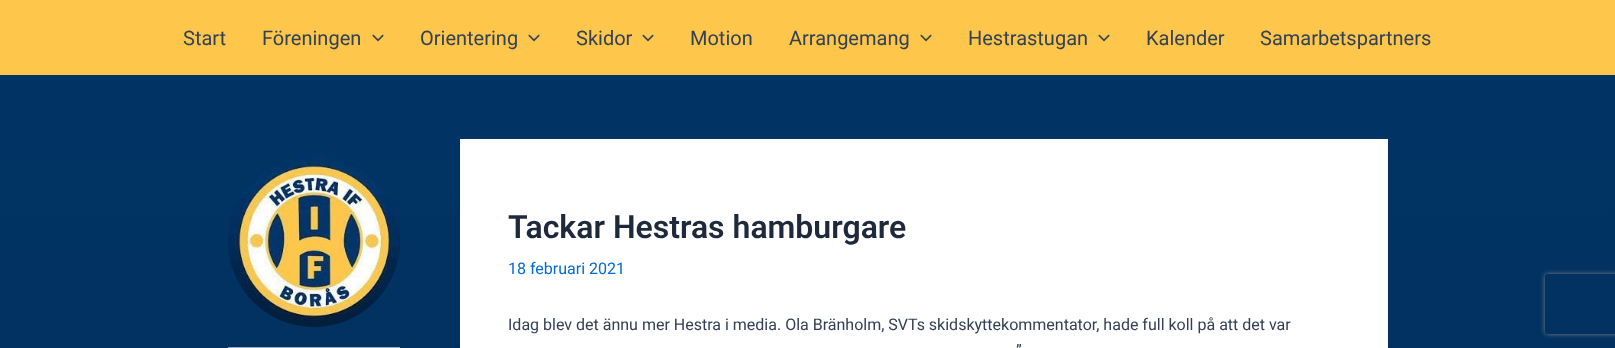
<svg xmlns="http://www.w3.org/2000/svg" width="1615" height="348">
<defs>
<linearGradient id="g1" gradientUnits="userSpaceOnUse" x1="808" y1="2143" x2="808" y2="0"><stop offset="0" stop-color="#021f3d"/><stop offset="1" stop-color="#013567"/></linearGradient>
<clipPath id="clip1"><path d="M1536 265h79v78h-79zm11 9h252c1 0 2 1 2 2v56c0 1-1 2-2 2h-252c-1 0-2-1-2-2v-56c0-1 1-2 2-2z" clip-rule="evenodd"/></clipPath>
</defs>
<rect width="100%" height="100%" fill="#fff"/>
<rect y="75" width="1615" height="273" fill="url(#g1)"/>
<rect width="1615" height="75" fill="#fec64b"/>
<text x="183" y="45" style="font-family:Roboto;font-size:20px;fill:#334155">Start</text>
<text x="262" y="45" style="font-family:Roboto;font-size:20px;fill:#334155">Föreningen</text>
<image x="372" y="34" width="12" height="8" href="media/1.png"/>
<text x="420" y="45" style="font-family:Roboto;font-size:20px;fill:#334155">Orientering</text>
<image x="528" y="34" width="12" height="8" href="media/1.png"/>
<text x="576" y="45" style="font-family:Roboto;font-size:20px;fill:#334155">Skidor</text>
<image x="642" y="34" width="12" height="8" href="media/1.png"/>
<text x="690" y="45" style="font-family:Roboto;font-size:20px;fill:#334155">Motion</text>
<text x="789" y="45" style="font-family:Roboto;font-size:20px;fill:#334155">Arrangemang</text>
<image x="920" y="34" width="12" height="8" href="media/1.png"/>
<text x="968" y="45" style="font-family:Roboto;font-size:20px;fill:#334155">Hestrastugan</text>
<image x="1098" y="34" width="12" height="8" href="media/1.png"/>
<text x="1146" y="45" style="font-family:Roboto;font-size:20px;fill:#334155">Kalender</text>
<text x="1260" y="45" style="font-family:Roboto;font-size:20px;fill:#334155">Samarbetspartners</text>
<image x="228" y="155" width="172" height="172" href="media/2.png"/>
<rect x="228.5" y="347.5" width="171" height="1" fill="none" stroke="#9babbd"/>
<rect x="460" y="139" width="928" height="209" fill="#fff"/>
<text x="508" y="238" style="font-family:Roboto;font-size:32px;font-weight:600;fill:#1e293b">Tackar Hestras hamburgare</text>
<text x="508" y="274" style="font-family:Roboto;font-size:16px;fill:#046bd2">18 februari 2021</text>
<text x="508" y="330" style="font-family:Roboto;font-size:16px;fill:#334155">Idag blev det ännu mer Hestra i media. Ola Bränholm, SVTs skidskyttekommentator, hade full koll på att det var</text>
<text x="1016" y="356" style="font-family:Roboto;font-size:16px;fill:#334155">”</text>
<g clip-path="url(#clip1)">
<rect x="1545" y="274" width="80" height="60" rx="2" fill="#808080" filter="blur(2.5px)"/>
</g>
</svg>
